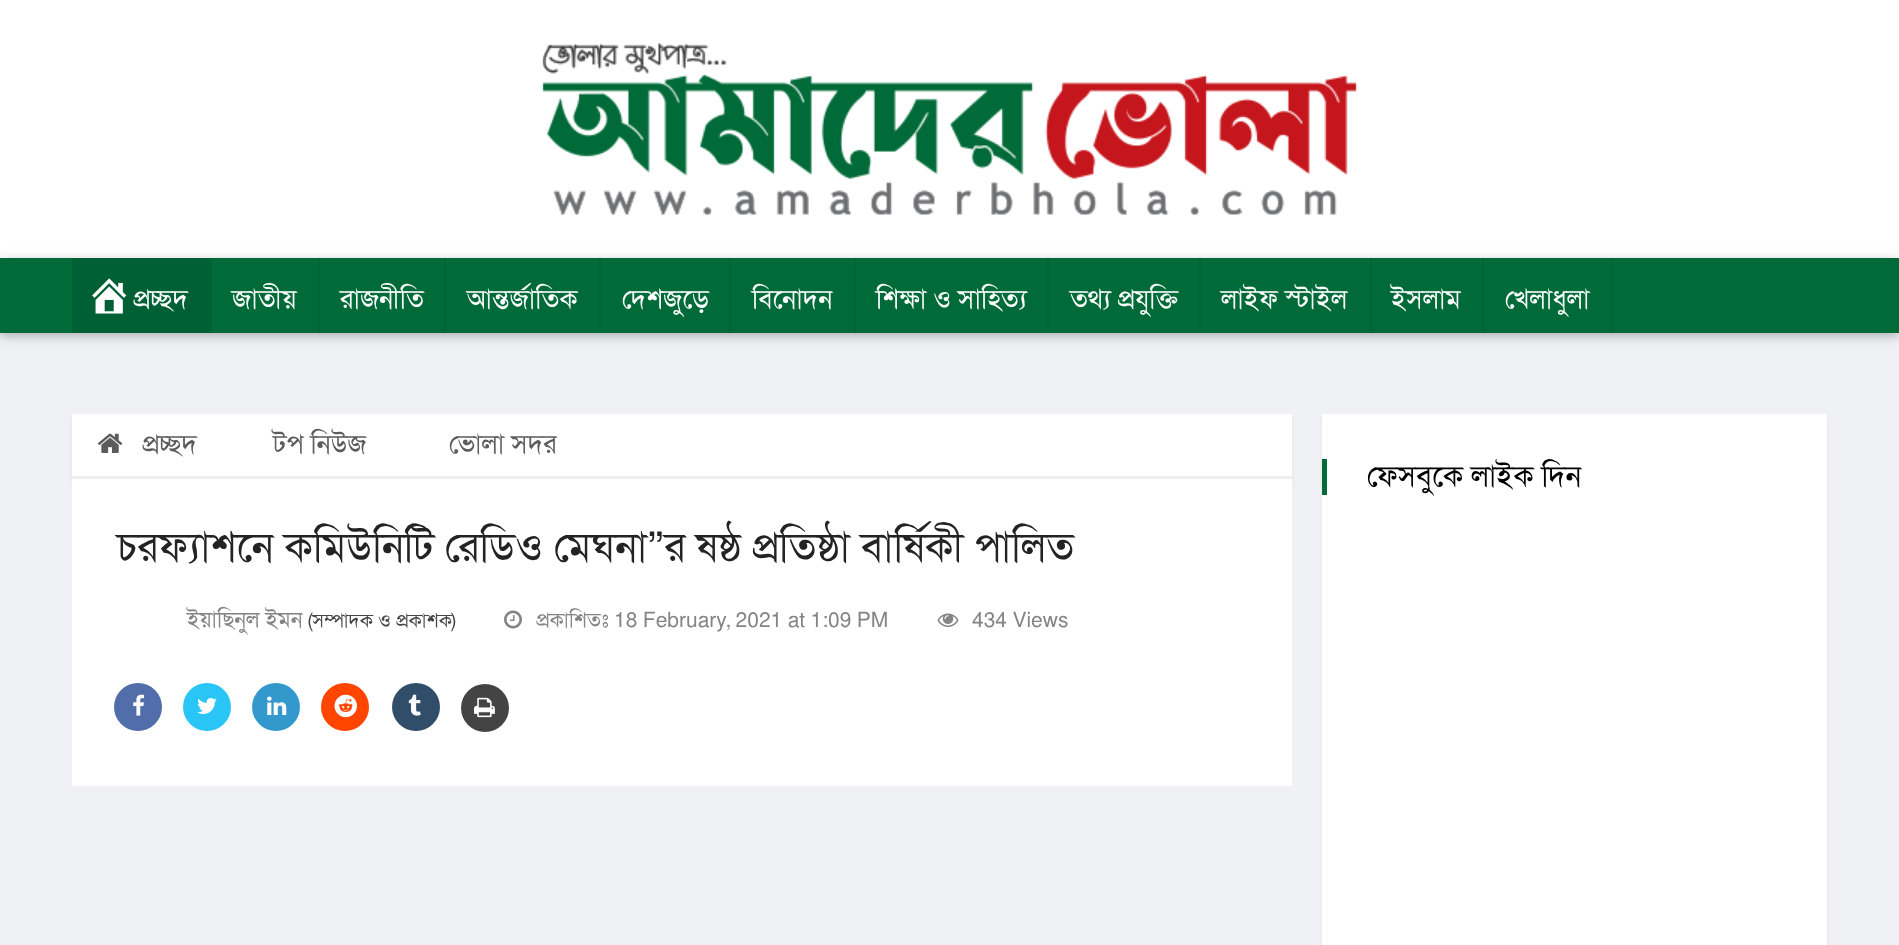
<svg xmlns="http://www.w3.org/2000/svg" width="1899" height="945">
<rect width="100%" height="100%" fill="#f0f1f4"/>
<rect width="1899" height="258" fill="#fff"/>
<image x="542" y="43" width="815" height="172" href="media/1.png"/>
<rect y="261" width="1899" height="75" fill="#0000001f" filter="blur(7.5px)"/>
<rect y="261" width="1899" height="75" fill="#00000029" filter="blur(4px)"/>
<rect y="258" width="1899" height="75" fill="#006b38"/>
<rect x="72" y="258" width="138" height="75" fill="#006035"/>
<rect x="210" y="258" width="2" height="75" fill="#006333"/>
<image x="92" y="278" width="35" height="36" href="media/2.png"/>
<text x="133" y="308" style="font-family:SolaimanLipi;font-size:27px;fill:#fff">প্রচ্ছদ</text>
<rect x="318" y="258" width="2" height="75" fill="#006333"/>
<text x="232" y="308" style="font-family:SolaimanLipi;font-size:27px;fill:#fff">জাতীয়</text>
<rect x="444" y="258" width="2" height="75" fill="#006333"/>
<text x="340" y="308" style="font-family:SolaimanLipi;font-size:27px;fill:#fff">রাজনীতি</text>
<rect x="599" y="258" width="2" height="75" fill="#006333"/>
<text x="467" y="308" style="font-family:SolaimanLipi;font-size:27px;fill:#fff">আন্তর্জাতিক</text>
<rect x="729" y="258" width="2" height="75" fill="#006333"/>
<text x="622" y="308" style="font-family:SolaimanLipi;font-size:27px;fill:#fff">দেশজুড়ে</text>
<rect x="854" y="258" width="2" height="75" fill="#006333"/>
<text x="752" y="308" style="font-family:SolaimanLipi;font-size:27px;fill:#fff">বিনোদন</text>
<rect x="1047" y="258" width="2" height="75" fill="#006333"/>
<text x="876" y="308" style="font-family:SolaimanLipi;font-size:27px;fill:#fff">শিক্ষা ও সাহিত্য</text>
<rect x="1199" y="258" width="2" height="75" fill="#006333"/>
<text x="1070" y="308" style="font-family:SolaimanLipi;font-size:27px;fill:#fff">তথ্য প্রযুক্তি</text>
<rect x="1370" y="258" width="2" height="75" fill="#006333"/>
<text x="1221" y="308" style="font-family:SolaimanLipi;font-size:27px;fill:#fff">লাইফ স্টাইল</text>
<rect x="1482" y="258" width="2" height="75" fill="#006333"/>
<text x="1391" y="308" style="font-family:SolaimanLipi;font-size:27px;fill:#fff">ইসলাম</text>
<rect x="1611" y="258" width="2" height="75" fill="#006333"/>
<text x="1505" y="308" style="font-family:SolaimanLipi;font-size:27px;fill:#fff">খেলাধুলা</text>
<rect x="72" y="417" width="1220" height="66" fill="#00000014" filter="blur(1.5px)"/>
<rect x="72" y="414" width="1220" height="62" fill="#fff"/>
<rect x="72" y="476" width="1220" height="3" fill="#eee"/>
<image x="97" y="433" width="26" height="20" href="media/3.png"/>
<text x="142" y="453" style="font-family:SolaimanLipi;font-size:27px;fill:#5c5c5c">প্রচ্ছদ</text>
<text x="273" y="453" style="font-family:SolaimanLipi;font-size:27px;fill:#5c5c5c">টপ নিউজ</text>
<text x="449" y="453" style="font-family:SolaimanLipi;font-size:27px;fill:#5c5c5c">ভোলা সদর</text>
<rect x="72" y="479" width="1220" height="307" fill="#fff"/>
<text x="117" y="561" style="font-family:SolaimanLipi;font-size:42px;fill:#232323">চরফ্যাশনে কমিউনিটি রেডিও মেঘনা”র ষষ্ঠ প্রতিষ্ঠা বার্ষিকী পালিত</text>
<text x="187" y="627" style="font-family:SolaimanLipi;font-size:22.5px;fill:#848484">ইয়াছিনুল ইমন</text>
<text x="308" y="627" style="font-family:SolaimanLipi;font-size:19.5px;fill:#444">(সম্পাদক ও প্রকাশক)</text>
<image x="504" y="610" width="18" height="19" href="media/4.png"/>
<text x="536" y="627" style="font-family:SolaimanLipi;font-size:21px;fill:#848484">প্রকাশিতঃ 18 February, 2021 at 1:09 PM</text>
<image x="937" y="613" width="22" height="14" href="media/5.png"/>
<text x="972" y="627" style="font-family:SolaimanLipi;font-size:21px;fill:#848484">434 Views</text>
<circle cx="138" cy="707" r="24" fill="#516eab"/>
<image x="133" y="694" width="12" height="22" href="media/6.png"/>
<circle cx="207" cy="707" r="24" fill="#29c5f6"/>
<image x="197" y="697" width="20" height="17" href="media/7.png"/>
<circle cx="276" cy="707" r="24" fill="#39c"/>
<image x="267" y="696" width="20" height="19" href="media/8.png"/>
<circle cx="345" cy="707" r="24" fill="#ff4500"/>
<image x="334" y="694" width="23" height="24" href="media/9.png"/>
<circle cx="416" cy="707" r="24" fill="#304e6a"/>
<image x="408" y="694" width="13" height="22" href="media/10.png"/>
<circle cx="485" cy="708" r="24" fill="#444"/>
<image x="474" y="697" width="21" height="21" href="media/11.png"/>
<rect x="1322" y="417" width="505" height="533" fill="#00000014" filter="blur(1.5px)"/>
<rect x="1322" y="414" width="505" height="531" fill="#fff"/>
<rect x="1322" y="459" width="5" height="36" fill="#006b38"/>
<text x="1367" y="486" style="font-family:SolaimanLipi;font-size:30px;fill:#000">ফেসবুকে লাইক দিন</text>
</svg>
